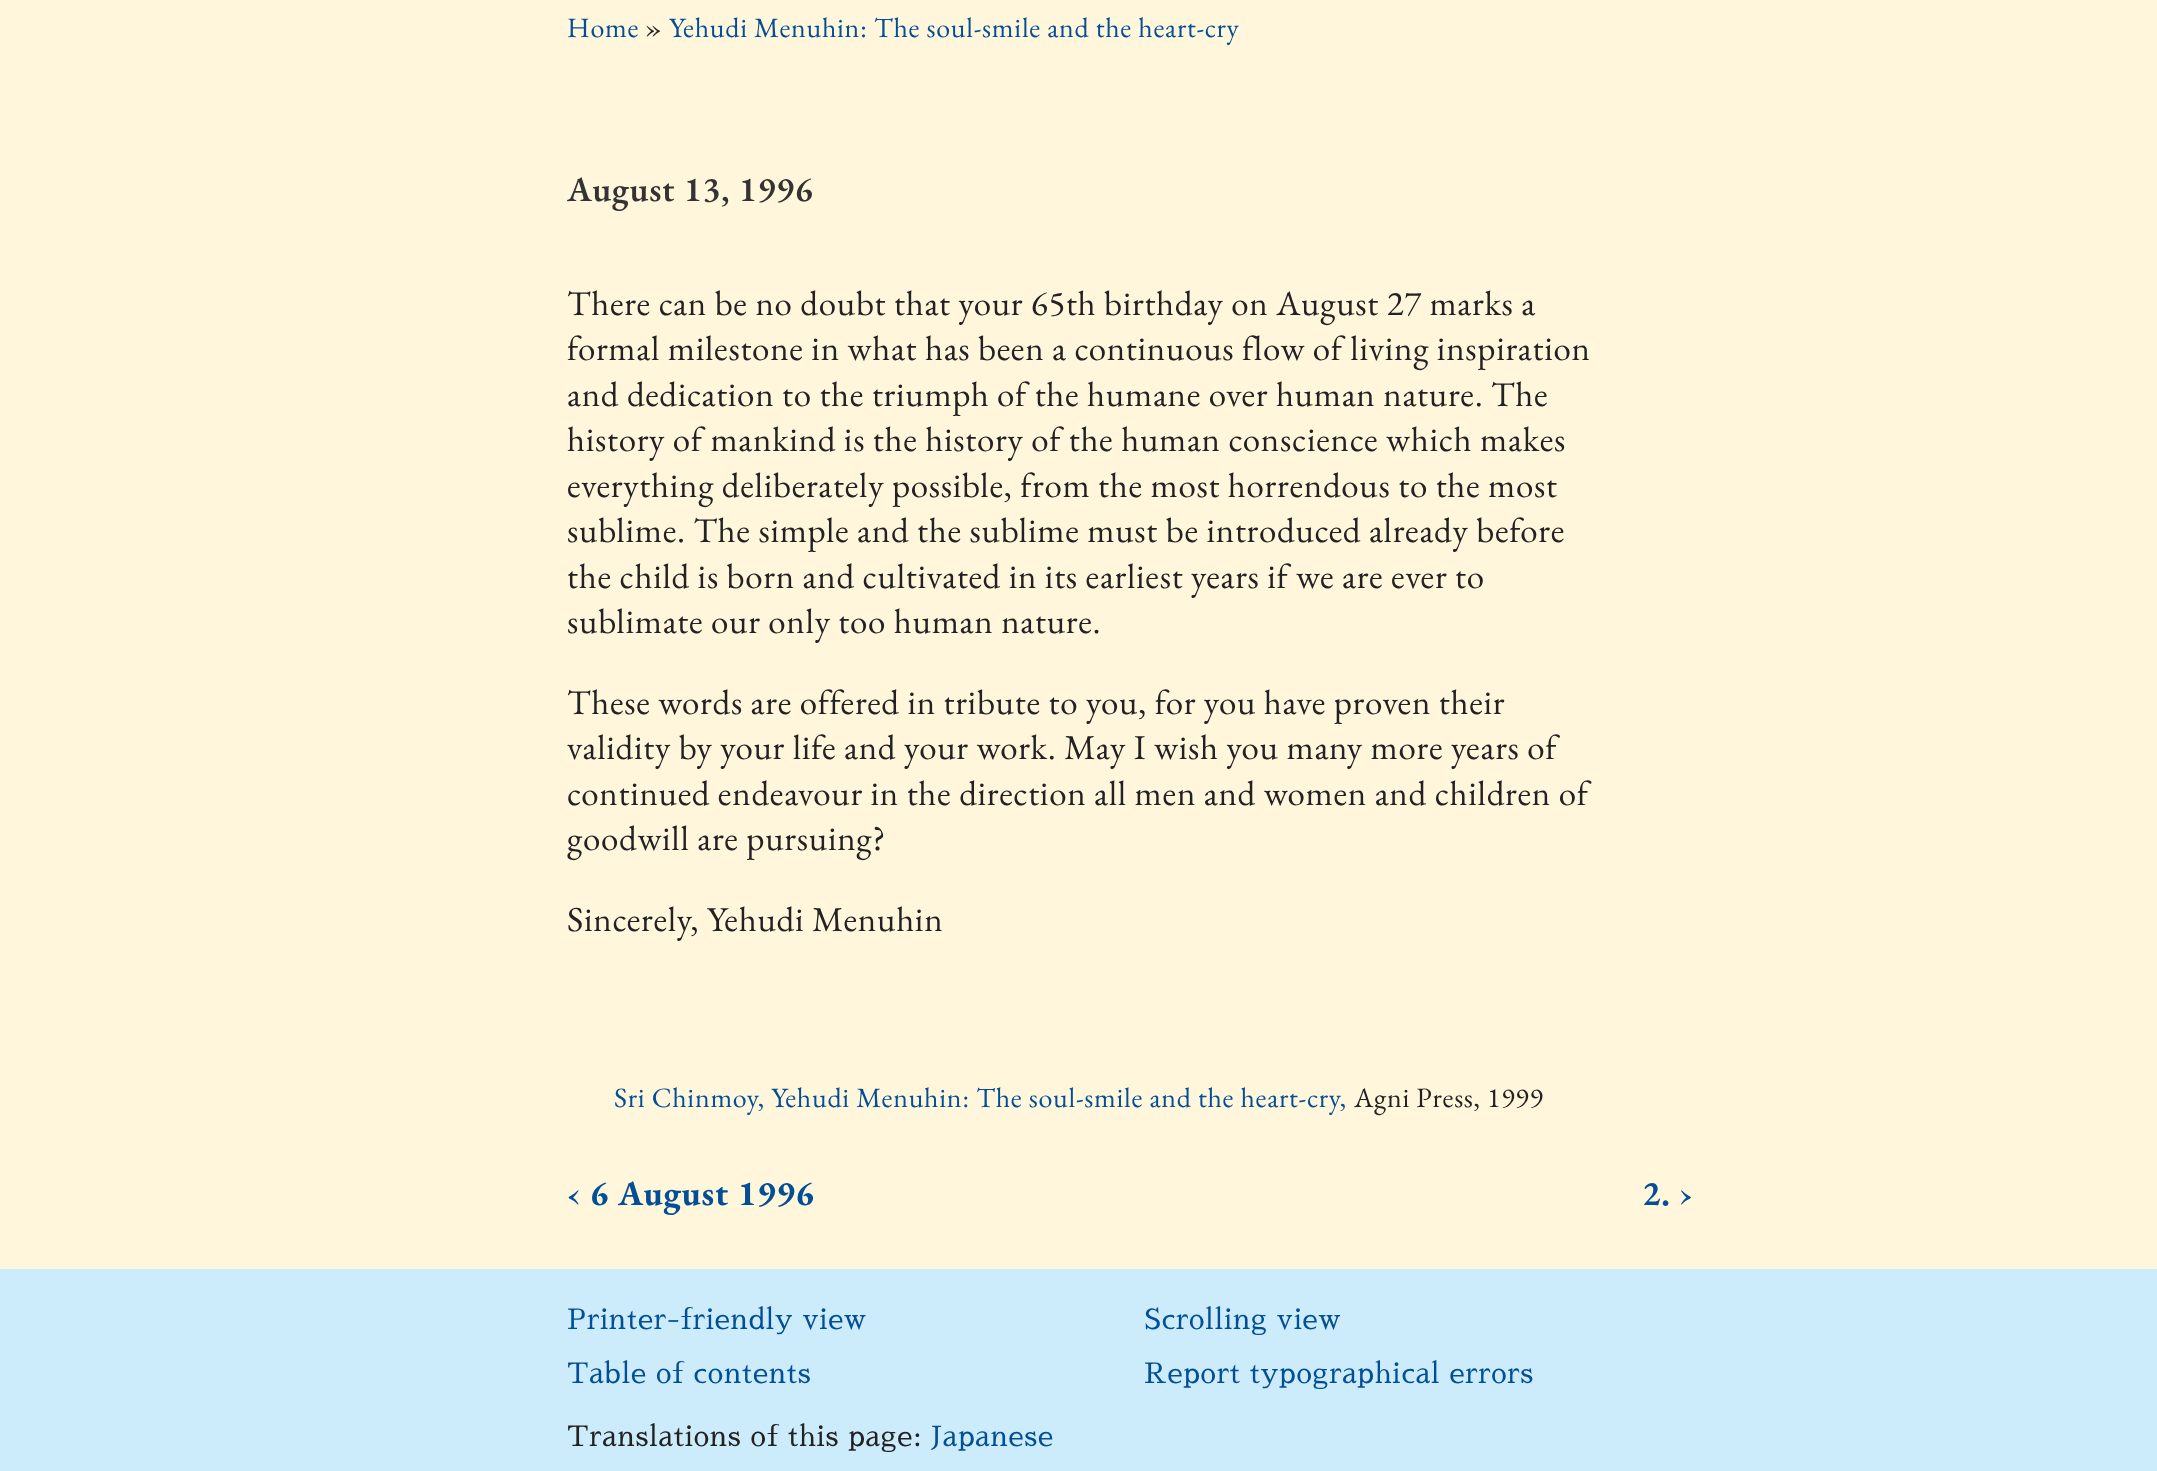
<svg xmlns="http://www.w3.org/2000/svg" width="2157" height="1471">
<rect width="100%" height="100%" fill="#fff6dc"/>
<text x="567" y="37" style="font-family:EB Garamond;font-size:28px;letter-spacing:0.7px;fill:#034f95">Home</text>
<text x="645" y="37" style="font-family:EB Garamond;font-size:28px;letter-spacing:0.7px;fill:#222">»</text>
<text x="669" y="37" style="font-family:EB Garamond;font-size:28px;letter-spacing:0.7px;fill:#034f95">Yehudi Menuhin: The soul-smile and the heart-cry</text>
<text x="567" y="201" style="font-family:EB Garamond;font-size:35px;font-weight:600;letter-spacing:0.7px;fill:#333">August 13, 1996</text>
<text x="567" y="315" style="font-family:EB Garamond;font-size:35px;letter-spacing:0.7px;fill:#222">There can be no doubt that your 65th birthday on August 27 marks a</text>
<text x="567" y="360" style="font-family:EB Garamond;font-size:35px;letter-spacing:0.7px;fill:#222">formal milestone in what has been a continuous flow of living inspiration</text>
<text x="567" y="406" style="font-family:EB Garamond;font-size:35px;letter-spacing:0.7px;fill:#222">and dedication to the triumph of the humane over human nature. The</text>
<text x="567" y="451" style="font-family:EB Garamond;font-size:35px;letter-spacing:0.7px;fill:#222">history of mankind is the history of the human conscience which makes</text>
<text x="567" y="497" style="font-family:EB Garamond;font-size:35px;letter-spacing:0.7px;fill:#222">everything deliberately possible, from the most horrendous to the most</text>
<text x="567" y="542" style="font-family:EB Garamond;font-size:35px;letter-spacing:0.7px;fill:#222">sublime. The simple and the sublime must be introduced already before</text>
<text x="567" y="588" style="font-family:EB Garamond;font-size:35px;letter-spacing:0.7px;fill:#222">the child is born and cultivated in its earliest years if we are ever to</text>
<text x="567" y="633" style="font-family:EB Garamond;font-size:35px;letter-spacing:0.7px;fill:#222">sublimate our only too human nature.</text>
<text x="567" y="714" style="font-family:EB Garamond;font-size:35px;letter-spacing:0.7px;fill:#222">These words are offered in tribute to you, for you have proven their</text>
<text x="567" y="759" style="font-family:EB Garamond;font-size:35px;letter-spacing:0.7px;fill:#222">validity by your life and your work. May I wish you many more years of</text>
<text x="567" y="805" style="font-family:EB Garamond;font-size:35px;letter-spacing:0.7px;fill:#222">continued endeavour in the direction all men and women and children of</text>
<text x="567" y="850" style="font-family:EB Garamond;font-size:35px;letter-spacing:0.7px;fill:#222">goodwill are pursuing?</text>
<text x="567" y="931" style="font-family:EB Garamond;font-size:35px;letter-spacing:0.7px;fill:#222">Sincerely, Yehudi Menuhin</text>
<text x="614" y="1107" style="font-family:EB Garamond;font-size:28px;letter-spacing:0.7px;fill:#034f95">Sri Chinmoy, Yehudi Menuhin: The soul-smile and the heart-cry,</text>
<text x="1354" y="1107" style="font-family:EB Garamond;font-size:28px;letter-spacing:0.7px;fill:#222">Agni Press, 1999</text>
<text x="567" y="1205" style="font-family:EB Garamond;font-size:35px;font-weight:bold;letter-spacing:0.7px;fill:#034f95">‹ 6 August 1996</text>
<text x="1642" y="1205" style="font-family:EB Garamond;font-size:35px;font-weight:bold;letter-spacing:0.7px;fill:#034f95">2. ›</text>
<rect y="1269" width="2157" height="202" fill="#ccecfc"/>
<text x="567" y="1329" style="font-family:Sawarabi Mincho;font-size:28px;letter-spacing:0.7px;fill:#034f95">Printer-friendly view</text>
<text x="1144" y="1329" style="font-family:Sawarabi Mincho;font-size:28px;letter-spacing:0.7px;fill:#034f95">Scrolling view</text>
<text x="567" y="1383" style="font-family:Sawarabi Mincho;font-size:28px;letter-spacing:0.7px;fill:#034f95">Table of contents</text>
<text x="1144" y="1383" style="font-family:Sawarabi Mincho;font-size:28px;letter-spacing:0.7px;fill:#034f95">Report typographical errors</text>
<text x="567" y="1446" style="font-family:Sawarabi Mincho;font-size:28px;letter-spacing:0.7px;fill:#222">Translations of this page:</text>
<text x="931" y="1446" style="font-family:Sawarabi Mincho;font-size:28px;letter-spacing:0.7px;fill:#034f95">Japanese</text>
</svg>
